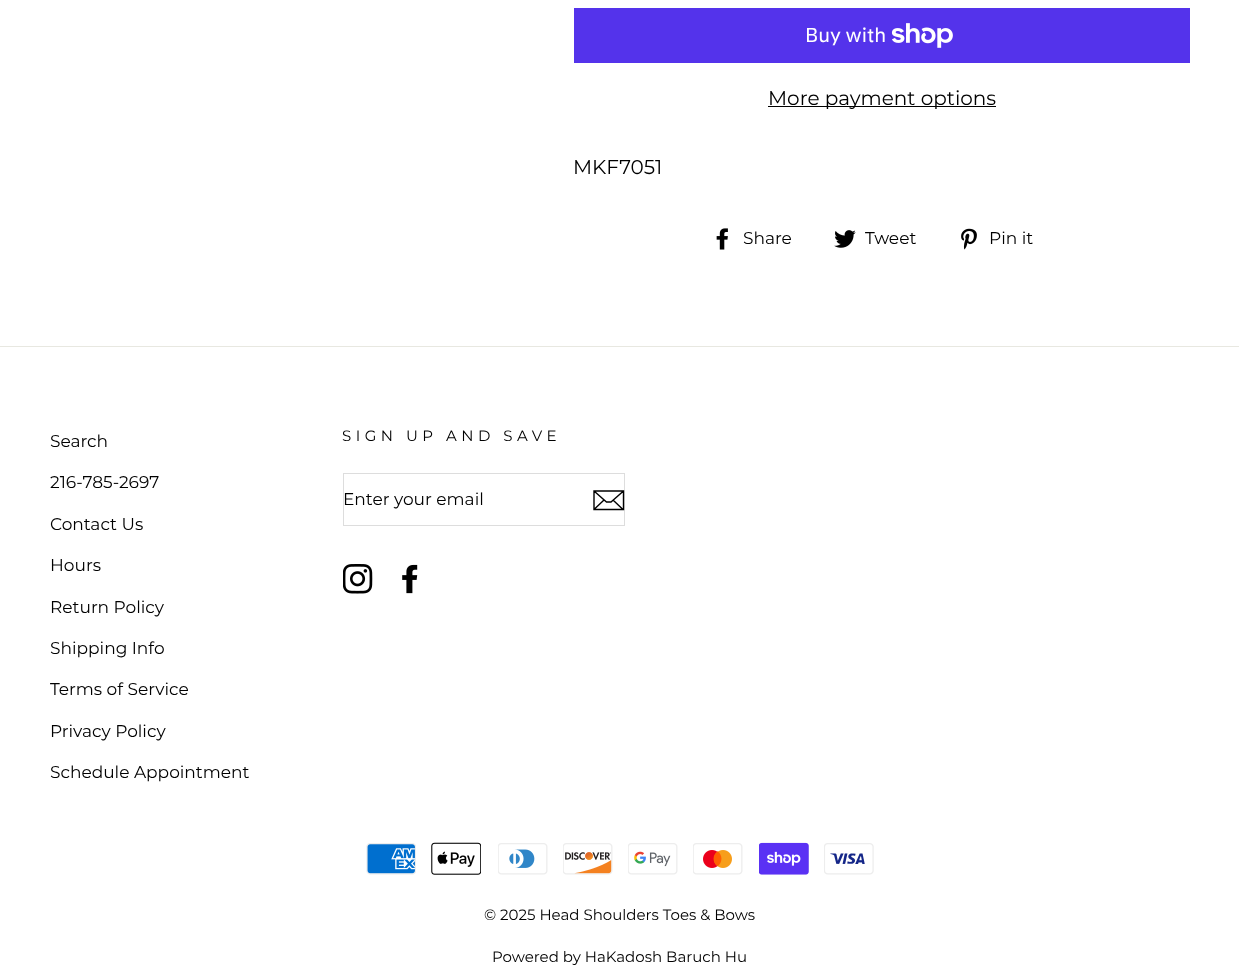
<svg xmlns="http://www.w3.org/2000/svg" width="1239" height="965">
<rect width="100%" height="100%" fill="#fff"/>
<rect x="574" y="8" width="616" height="55" fill="#5433eb"/>
<text x="805" y="42" style="font-family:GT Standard;font-size:20px;fill:#fff">Buy with</text>
<image x="891" y="23" width="62" height="25" href="media/1.png"/>
<rect x="768" y="106" width="228" height="1" fill="#000"/>
<text x="768" y="105" style="font-family:Montserrat;font-size:20px;fill:#000">More payment options</text>
<text x="573" y="174" style="font-family:Montserrat;font-size:20px;fill:#000">MKF7051</text>
<image x="716" y="228" width="12" height="22" href="media/2.png"/>
<text x="743" y="244" style="font-family:Montserrat;font-size:17px;fill:#000">Share</text>
<image x="834" y="230" width="22" height="18" href="media/3.png"/>
<text x="865" y="244" style="font-family:Montserrat;font-size:17px;fill:#000">Tweet</text>
<image x="961" y="228" width="16" height="22" href="media/4.png"/>
<text x="989" y="244" style="font-family:Montserrat;font-size:17px;fill:#000">Pin it</text>
<rect y="346" width="1239" height="1" fill="#e8e8e1"/>
<text x="50" y="447" style="font-family:Montserrat;font-size:17px;fill:#000">Search</text>
<text x="50" y="488" style="font-family:Montserrat;font-size:17px;fill:#000">216-785-2697</text>
<text x="50" y="530" style="font-family:Montserrat;font-size:17px;fill:#000">Contact Us</text>
<text x="50" y="571" style="font-family:Montserrat;font-size:17px;fill:#000">Hours</text>
<text x="50" y="613" style="font-family:Montserrat;font-size:17px;fill:#000">Return Policy</text>
<text x="50" y="654" style="font-family:Montserrat;font-size:17px;fill:#000">Shipping Info</text>
<text x="50" y="695" style="font-family:Montserrat;font-size:17px;fill:#000">Terms of Service</text>
<text x="50" y="737" style="font-family:Montserrat;font-size:17px;fill:#000">Privacy Policy</text>
<text x="50" y="778" style="font-family:Montserrat;font-size:17px;fill:#000">Schedule Appointment</text>
<text x="342" y="441" style="font-family:Montserrat;font-size:15px;letter-spacing:4.5px;fill:#000">SIGN UP AND SAVE</text>
<rect x="343.5" y="473.5" width="281" height="52" fill="none" stroke="#ddd"/>
<text x="343" y="505" style="font-family:Montserrat;font-size:17px;fill:#000">Enter your email</text>
<path d="M623.5 509.5h-29.5v-18.5h29.5zm-29.5-18.5l12.5 11h4.5l12.5-11m-19.5 9l-9.5 9m28.5 .5l-10-9.5" fill="none" stroke="#000" stroke-width="1.4"/>
<image x="343" y="564" width="30" height="30" href="media/5.png"/>
<image x="402" y="564" width="16" height="30" href="media/6.png"/>
<image x="366" y="843" width="50" height="32" href="media/7.png"/>
<image x="431" y="842" width="50" height="33" href="media/8.png"/>
<image x="498" y="843" width="50" height="32" href="media/9.png"/>
<image x="563" y="843" width="50" height="32" href="media/10.png"/>
<image x="628" y="843" width="50" height="32" href="media/11.png"/>
<image x="693" y="843" width="50" height="32" href="media/12.png"/>
<image x="759" y="842" width="50" height="33" href="media/13.png"/>
<image x="824" y="843" width="50" height="32" href="media/14.png"/>
<text x="484" y="920" style="font-family:Montserrat;font-size:15px;fill:#000">© 2025 Head Shoulders Toes &amp; Bows</text>
<text x="492" y="962" style="font-family:Montserrat;font-size:15px;fill:#000">Powered by HaKadosh Baruch Hu</text>
</svg>
